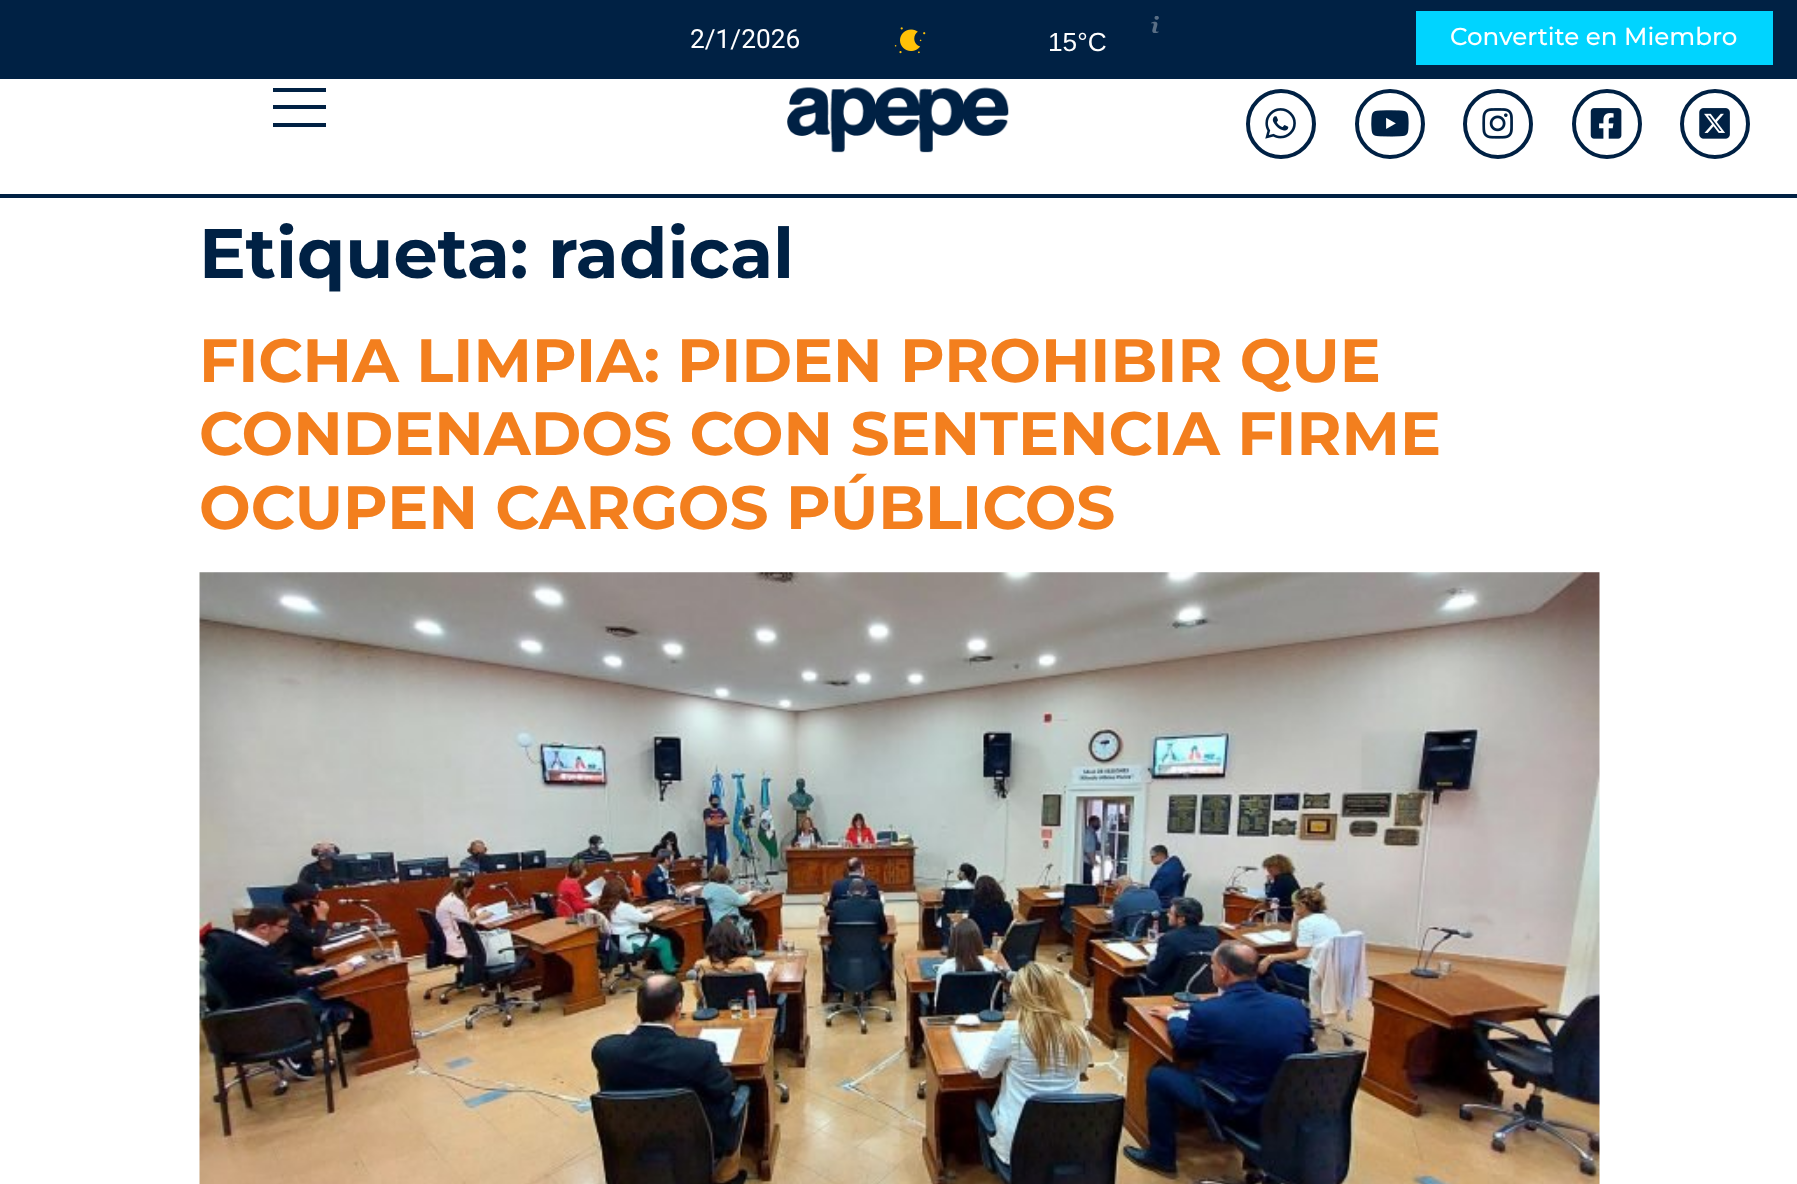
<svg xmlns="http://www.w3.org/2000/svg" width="1797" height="1184">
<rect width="100%" height="100%" fill="#fff"/>
<rect y="194" width="1797" height="4" fill="#002144"/>
<rect width="1797" height="79" fill="#002144"/>
<text x="690" y="48" style="font-family:Roboto;font-size:26.25px;fill:#fff">2/1/2026</text>
<image x="1151" y="16" width="8" height="17" href="media/1.png"/>
<image x="894" y="27" width="32" height="27" href="media/2.png"/>
<text x="1048" y="51" style="font-family:Liberation Sans;font-size:26.25px;fill:#fff">15°C</text>
<rect x="1416" y="11" width="357" height="54" fill="#00d4ff"/>
<text x="1450" y="45" style="font-family:Montserrat;font-size:24.5px;font-weight:500;fill:#fff">Convertite en Miembro</text>
<rect x="273" y="105" width="53" height="4" fill="#002144"/>
<rect x="273" y="88" width="53" height="4" fill="#002144"/>
<rect x="273" y="123" width="53" height="4" fill="#002144"/>
<image x="787" y="87" width="222" height="66" href="media/3.png"/>
<circle cx="1281" cy="124" r="33" fill="none" stroke="#002144" stroke-width="4"/>
<image x="1265" y="108" width="31" height="31" href="media/4.png"/>
<circle cx="1390" cy="124" r="33" fill="none" stroke="#002144" stroke-width="4"/>
<image x="1371" y="110" width="38" height="27" href="media/5.png"/>
<circle cx="1498" cy="124" r="33" fill="none" stroke="#002144" stroke-width="4"/>
<image x="1482" y="108" width="31" height="31" href="media/6.png"/>
<circle cx="1607" cy="124" r="33" fill="none" stroke="#002144" stroke-width="4"/>
<image x="1590" y="108" width="32" height="31" href="media/7.png"/>
<circle cx="1715" cy="124" r="33" fill="none" stroke="#002144" stroke-width="4"/>
<image x="1699" y="108" width="31" height="31" href="media/8.png"/>
<text x="199" y="278" style="font-family:Montserrat;font-size:70px;font-weight:bold;fill:#002144">Etiqueta: radical</text>
<text x="199" y="382" style="font-family:Montserrat;font-size:61.25px;font-weight:bold;fill:#f37f1e">FICHA LIMPIA: PIDEN PROHIBIR QUE</text>
<text x="199" y="455" style="font-family:Montserrat;font-size:61.25px;font-weight:bold;fill:#f37f1e">CONDENADOS CON SENTENCIA FIRME</text>
<text x="199" y="529" style="font-family:Montserrat;font-size:61.25px;font-weight:bold;fill:#f37f1e">OCUPEN CARGOS PÚBLICOS</text>
<image x="199" y="572" width="1401" height="612" href="media/9.png"/>
</svg>
